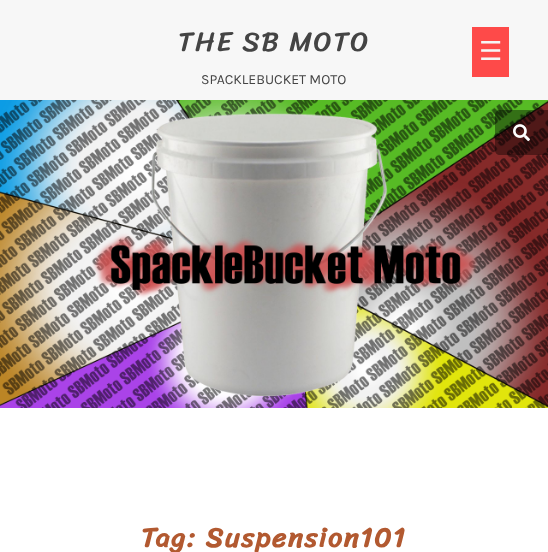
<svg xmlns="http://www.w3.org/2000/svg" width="548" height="552">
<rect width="100%" height="100%" fill="#fff"/>
<rect width="548" height="100" fill="#f7f7f7"/>
<text x="178" y="51" style="font-family:Sriracha;font-size:28px;letter-spacing:1.5px;fill:#444">THE SB MOTO</text>
<text x="201" y="84" style="font-family:Karla;font-size:14px;fill:#444">SPACKLEBUCKET MOTO</text>
<rect x="472" y="27" width="37" height="50" fill="#fe4a49"/>
<text x="479" y="60" style="font-family:DejaVu Sans;font-size:26px;fill:#f5f5f5">☰</text>
<image x="0" y="100" width="548" height="308" href="media/1.png"/>
<path d="M500 110h48v45h-48c-3 0-5-2-5-5v-35c0-3 2-5 5-5z" fill="#00000066"/>
<image x="513" y="124" width="17" height="18" href="media/2.png"/>
<text x="141" y="547" style="font-family:Sriracha;font-size:28px;font-weight:bold;letter-spacing:1.5px;fill:#b25930">Tag: Suspension101</text>
</svg>
